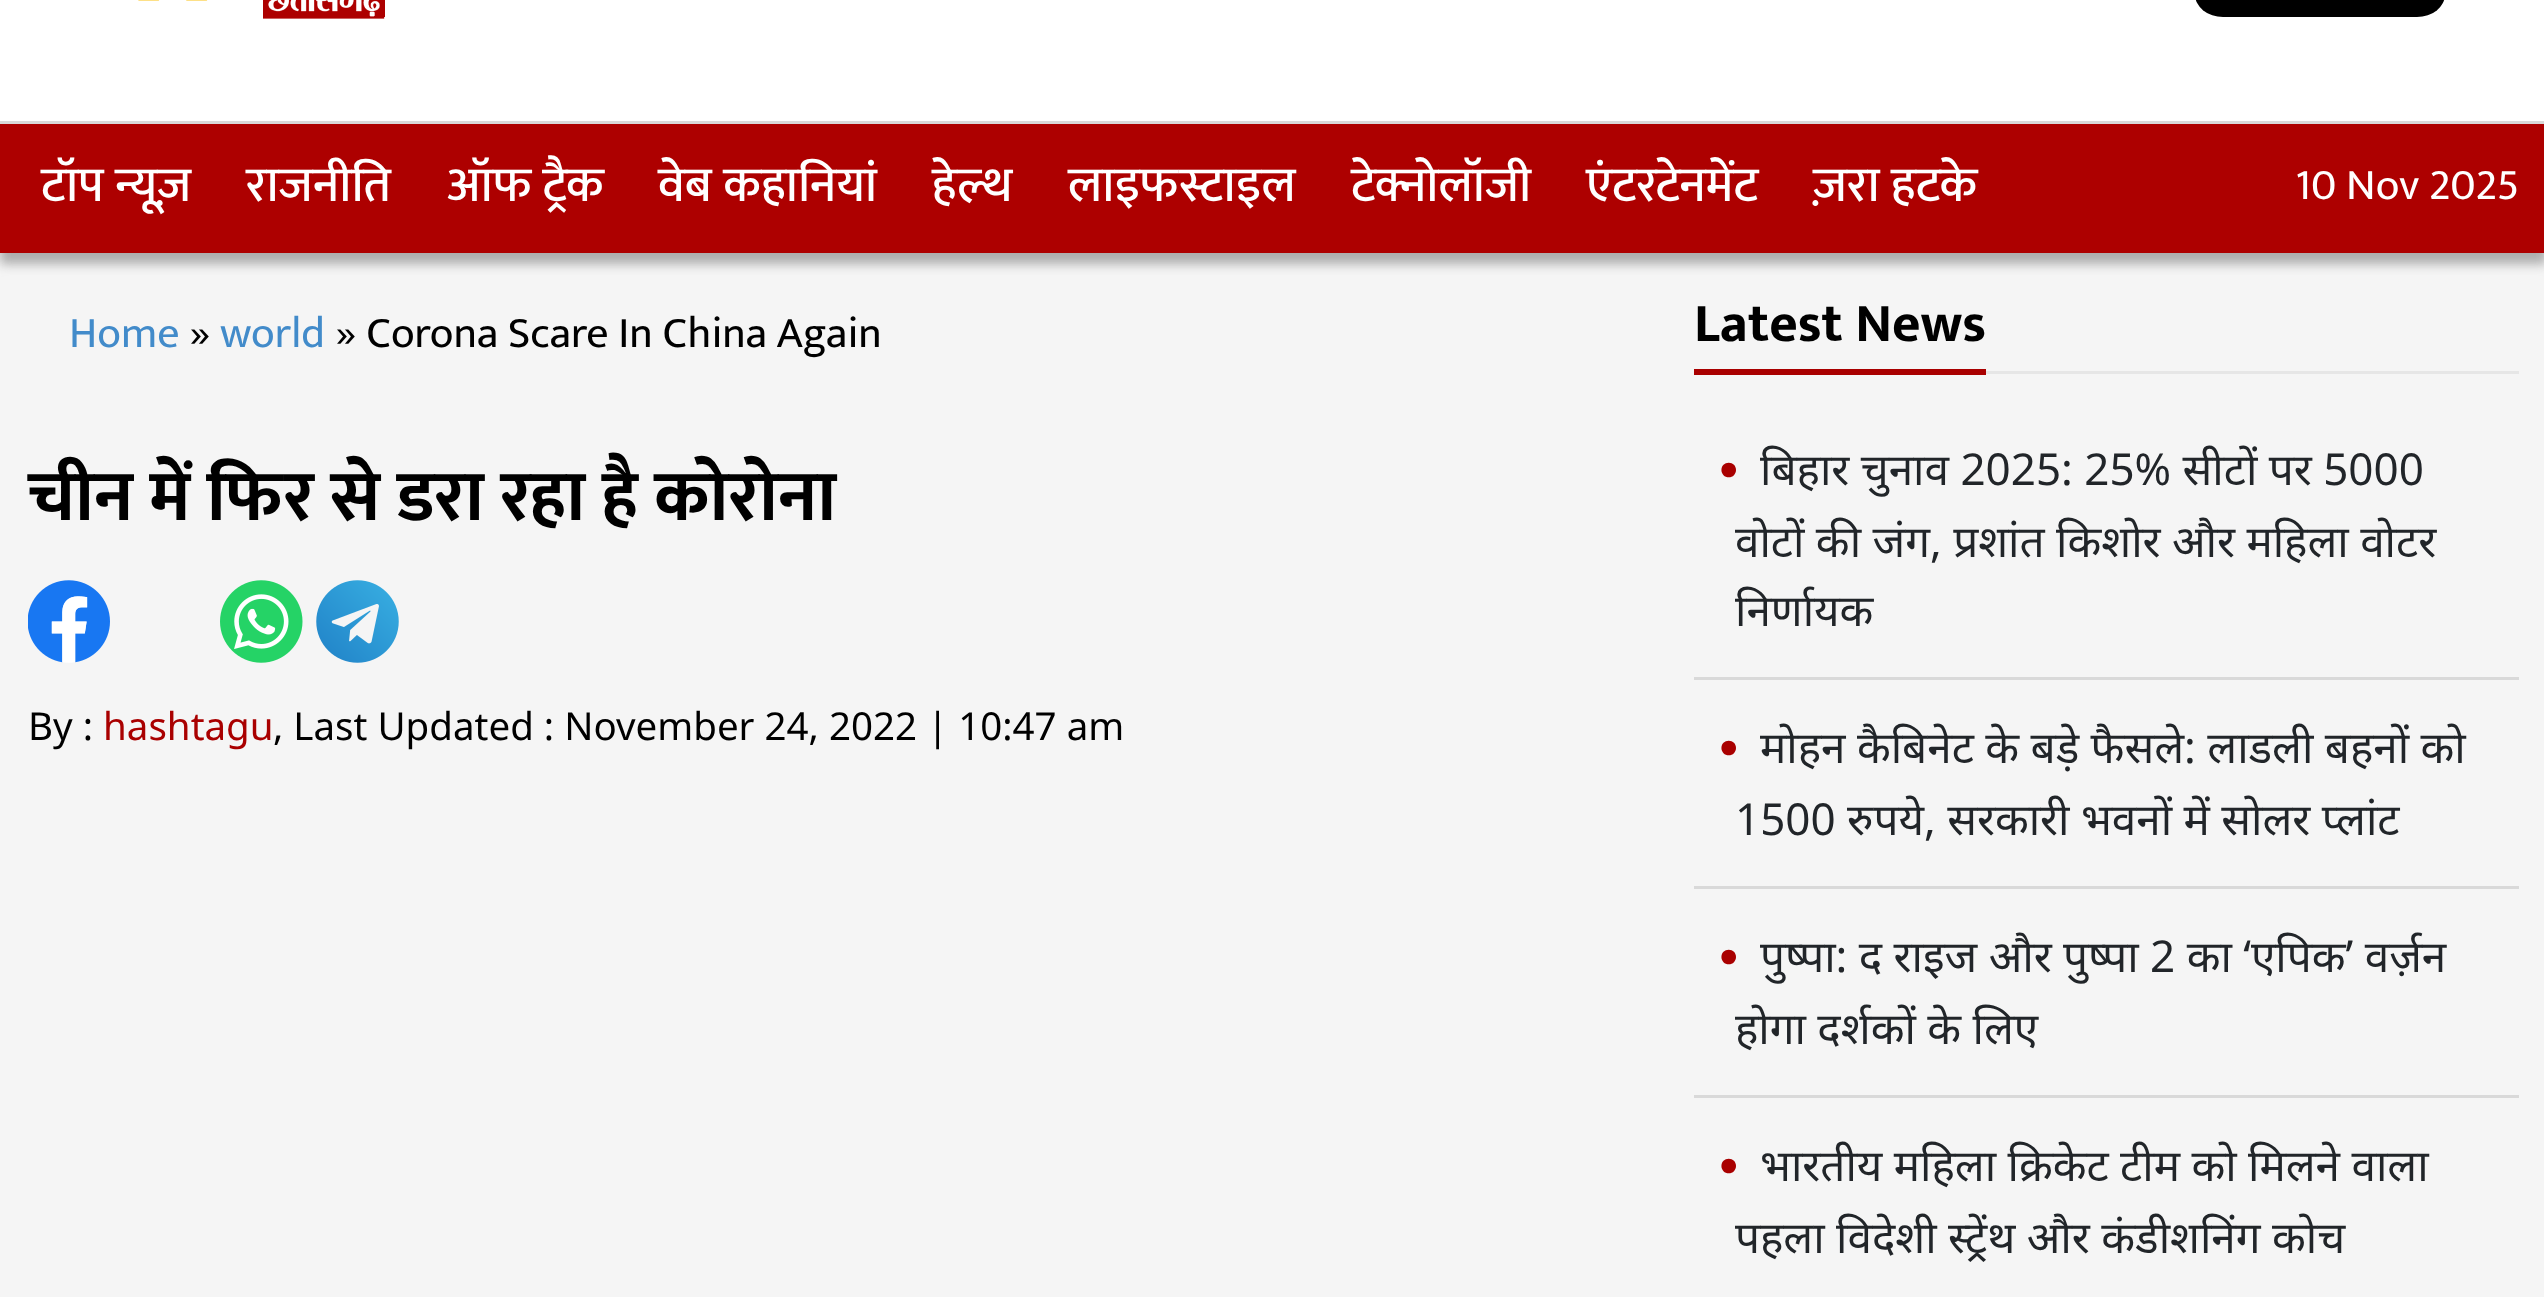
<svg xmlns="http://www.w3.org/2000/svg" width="2544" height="1297">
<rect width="100%" height="100%" fill="#f5f5f5"/>
<rect width="2544" height="121" fill="#fff"/>
<rect y="121" width="2544" height="3" fill="#d9d9d9"/>
<image x="138" y="0" width="247" height="19" href="media/1.png"/>
<rect x="2195" y="-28" width="250" height="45" rx="28" fill="#000"/>
<rect y="135" width="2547" height="129" fill="#acacac" filter="blur(5.5px)"/>
<rect y="124" width="2544" height="129" fill="#ad0000"/>
<text x="41" y="201" style="font-family:Mukta;font-size:49.5px;font-weight:500;fill:#fff">टॉप न्यूज़</text>
<text x="246" y="201" style="font-family:Mukta;font-size:49.5px;font-weight:500;fill:#fff">राजनीति</text>
<text x="447" y="201" style="font-family:Mukta;font-size:49.5px;font-weight:500;fill:#fff">ऑफ ट्रैक</text>
<text x="658" y="201" style="font-family:Mukta;font-size:49.5px;font-weight:500;fill:#fff">वेब कहानियां</text>
<text x="932" y="201" style="font-family:Mukta;font-size:49.5px;font-weight:500;fill:#fff">हेल्थ</text>
<text x="1068" y="201" style="font-family:Mukta;font-size:49.5px;font-weight:500;fill:#fff">लाइफस्टाइल</text>
<text x="1351" y="201" style="font-family:Mukta;font-size:49.5px;font-weight:500;fill:#fff">टेक्नोलॉजी</text>
<text x="1586" y="201" style="font-family:Mukta;font-size:49.5px;font-weight:500;fill:#fff">एंटरटेनमेंट</text>
<text x="1813" y="201" style="font-family:Mukta;font-size:49.5px;font-weight:500;fill:#fff">ज़रा हटके</text>
<text x="2295" y="199" style="font-family:Mukta;font-size:44px;fill:#fff">10 Nov 2025</text>
<text x="69" y="347" style="font-family:Mukta;font-size:44px;fill:#428bca">Home</text>
<text x="189" y="347" style="font-family:Mukta;font-size:44px;fill:#000">»</text>
<text x="220" y="347" style="font-family:Mukta;font-size:44px;fill:#428bca">world</text>
<text x="335" y="347" style="font-family:Mukta;font-size:44px;fill:#000">» Corona Scare In China Again</text>
<text x="28" y="520" style="font-family:Mukta;font-size:71.5px;font-weight:bold;fill:#000">चीन में फिर से डरा रहा है कोरोना</text>
<image x="28" y="580" width="82" height="83" href="media/2.png"/>
<image x="220" y="580" width="83" height="83" href="media/3.png"/>
<image x="316" y="580" width="83" height="83" href="media/4.png"/>
<text x="28" y="740" style="font-family:Noto Sans;font-size:38.5px;fill:#000">By :</text>
<text x="103" y="740" style="font-family:Noto Sans;font-size:38.5px;fill:#a90000">hashtagu</text>
<text x="273" y="740" style="font-family:Noto Sans;font-size:38.5px;fill:#000">, Last Updated : November 24, 2022 | 10:47 am</text>
<rect x="1986" y="371" width="533" height="3" fill="#e6e6e6"/>
<rect x="1694" y="369" width="292" height="6" fill="#a90000"/>
<text x="1694" y="341" style="font-family:Mukta;font-size:55px;font-weight:bold;fill:#000">Latest News</text>
<rect x="1694" y="677" width="825" height="3" fill="#d9d9d9"/>
<text x="1719" y="485" style="font-family:Mukta;font-size:55px;font-weight:bold;fill:#a90000">•</text>
<text x="1760" y="485" style="font-family:Noto Sans;font-size:44px;fill:#212529">बिहार चुनाव 2025: 25% सीटों पर 5000</text>
<text x="1735" y="557" style="font-family:Noto Sans;font-size:44px;fill:#212529">वोटों की जंग, प्रशांत किशोर और महिला वोटर</text>
<text x="1735" y="626" style="font-family:Noto Sans;font-size:44px;fill:#212529">निर्णायक</text>
<rect x="1694" y="886" width="825" height="3" fill="#d9d9d9"/>
<text x="1719" y="763" style="font-family:Mukta;font-size:55px;font-weight:bold;fill:#a90000">•</text>
<text x="1760" y="763" style="font-family:Noto Sans;font-size:44px;fill:#212529">मोहन कैबिनेट के बड़े फैसले: लाडली बहनों को</text>
<text x="1735" y="835" style="font-family:Noto Sans;font-size:44px;fill:#212529">1500 रुपये, सरकारी भवनों में सोलर प्लांट</text>
<rect x="1694" y="1095" width="825" height="3" fill="#d9d9d9"/>
<text x="1719" y="972" style="font-family:Mukta;font-size:55px;font-weight:bold;fill:#a90000">•</text>
<text x="1760" y="972" style="font-family:Noto Sans;font-size:44px;fill:#212529">पुष्पा: द राइज और पुष्पा 2 का ‘एपिक’ वर्ज़न</text>
<text x="1735" y="1044" style="font-family:Noto Sans;font-size:44px;fill:#212529">होगा दर्शकों के लिए</text>
<text x="1719" y="1181" style="font-family:Mukta;font-size:55px;font-weight:bold;fill:#a90000">•</text>
<text x="1760" y="1181" style="font-family:Noto Sans;font-size:44px;fill:#212529">भारतीय महिला क्रिकेट टीम को मिलने वाला</text>
<text x="1735" y="1253" style="font-family:Noto Sans;font-size:44px;fill:#212529">पहला विदेशी स्ट्रेंथ और कंडीशनिंग कोच</text>
</svg>
